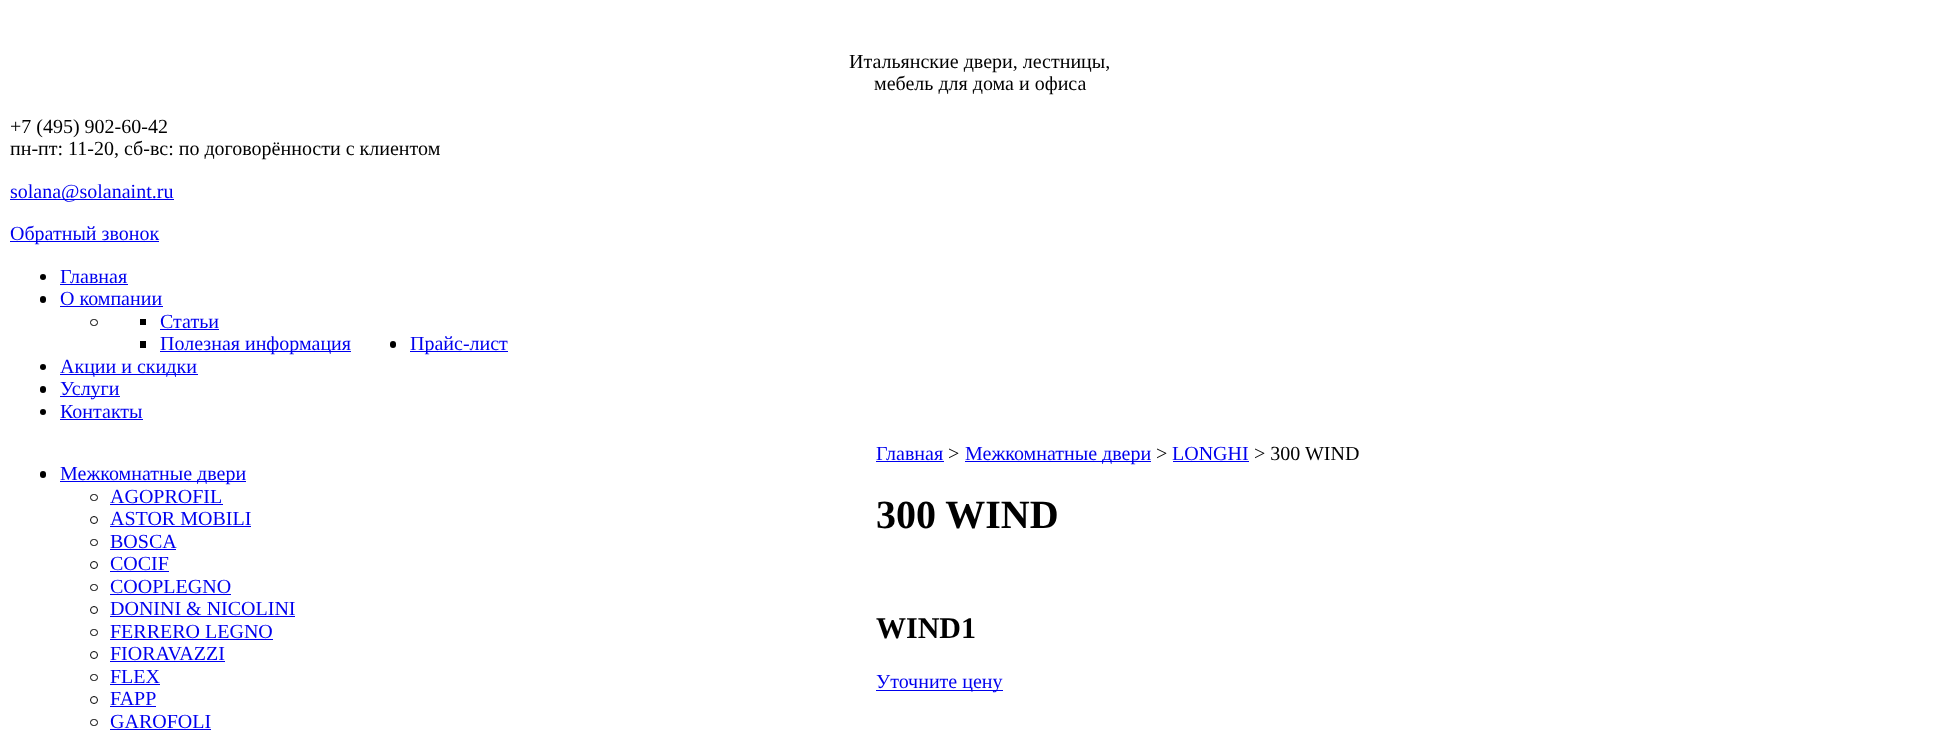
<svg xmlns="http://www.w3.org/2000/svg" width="1960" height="740">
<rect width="100%" height="100%" fill="#fff"/>
<text x="849" y="68" style="font-family:Liberation Serif;font-size:20px;fill:#000">Итальянские двери, лестницы,</text>
<text x="874" y="90" style="font-family:Liberation Serif;font-size:20px;fill:#000">мебель для дома и офиса</text>
<text x="10" y="133" style="font-family:Liberation Serif;font-size:20px;fill:#000">+7 (495) 902-60-42</text>
<text x="10" y="155" style="font-family:Liberation Serif;font-size:20px;fill:#000">пн-пт: 11-20, сб-вс: по договорённости с клиентом</text>
<rect x="10" y="199" width="164" height="1" fill="#00e"/>
<text x="10" y="198" style="font-family:Liberation Serif;font-size:20px;fill:#00e">solana@solanaint.ru</text>
<rect x="10" y="241" width="149" height="1" fill="#00e"/>
<text x="10" y="240" style="font-family:Liberation Serif;font-size:20px;fill:#00e">Обратный звонок</text>
<circle cx="43" cy="277" r="3" fill="#000"/>
<text x="60" y="283" style="font-family:Liberation Serif;font-size:20px;fill:#00e">Главная</text>
<rect x="60" y="284" width="68" height="1" fill="#00e"/>
<rect x="40" y="296" width="6" height="7" rx="3" fill="#000"/>
<text x="60" y="305" style="font-family:Liberation Serif;font-size:20px;fill:#00e">О компании</text>
<rect x="60" y="306" width="103" height="1" fill="#00e"/>
<rect x="90.5" y="319.5" width="7" height="6" rx="3" fill="none" stroke="#000"/>
<rect x="140" y="319" width="6" height="6" fill="#000"/>
<text x="160" y="328" style="font-family:Liberation Serif;font-size:20px;fill:#00e">Статьи</text>
<rect x="160" y="329" width="59" height="1" fill="#00e"/>
<rect x="140" y="341" width="6" height="7" fill="#000"/>
<rect x="160" y="351" width="191" height="1" fill="#00e"/>
<text x="160" y="350" style="font-family:Liberation Serif;font-size:20px;fill:#00e">Полезная информация</text>
<rect x="390" y="341" width="6" height="7" rx="3" fill="#000"/>
<rect x="410" y="351" width="98" height="1" fill="#00e"/>
<text x="410" y="350" style="font-family:Liberation Serif;font-size:20px;fill:#00e">Прайс-лист</text>
<circle cx="43" cy="367" r="3" fill="#000"/>
<rect x="60" y="374" width="138" height="1" fill="#00e"/>
<text x="60" y="373" style="font-family:Liberation Serif;font-size:20px;fill:#00e">Акции и скидки</text>
<rect x="40" y="386" width="6" height="7" rx="3" fill="#000"/>
<rect x="60" y="396" width="60" height="1" fill="#00e"/>
<text x="60" y="395" style="font-family:Liberation Serif;font-size:20px;fill:#00e">Услуги</text>
<circle cx="43" cy="412" r="3" fill="#000"/>
<text x="60" y="418" style="font-family:Liberation Serif;font-size:20px;fill:#00e">Контакты</text>
<rect x="60" y="419" width="83" height="1" fill="#00e"/>
<rect x="40" y="471" width="6" height="7" rx="3" fill="#000"/>
<rect x="60" y="481" width="186" height="1" fill="#00e"/>
<text x="60" y="480" style="font-family:Liberation Serif;font-size:20px;fill:#00e">Межкомнатные двери</text>
<rect x="90.5" y="494.5" width="7" height="6" rx="3" fill="none" stroke="#000"/>
<text x="110" y="503" style="font-family:Liberation Serif;font-size:20px;fill:#00e">AGOPROFIL</text>
<rect x="110" y="504" width="113" height="1" fill="#00e"/>
<circle cx="94" cy="520" r="3.5" fill="none" stroke="#000"/>
<text x="110" y="525" style="font-family:Liberation Serif;font-size:20px;fill:#00e">ASTOR MOBILI</text>
<rect x="110" y="526" width="141" height="1" fill="#00e"/>
<rect x="90.5" y="539.5" width="7" height="6" rx="3" fill="none" stroke="#000"/>
<text x="110" y="548" style="font-family:Liberation Serif;font-size:20px;fill:#00e">BOSCA</text>
<rect x="110" y="549" width="66" height="1" fill="#00e"/>
<circle cx="94" cy="565" r="3.5" fill="none" stroke="#000"/>
<text x="110" y="570" style="font-family:Liberation Serif;font-size:20px;fill:#00e">COCIF</text>
<rect x="110" y="571" width="59" height="1" fill="#00e"/>
<rect x="90.5" y="584.5" width="7" height="6" rx="3" fill="none" stroke="#000"/>
<text x="110" y="593" style="font-family:Liberation Serif;font-size:20px;fill:#00e">COOPLEGNO</text>
<rect x="110" y="594" width="121" height="1" fill="#00e"/>
<circle cx="94" cy="610" r="3.5" fill="none" stroke="#000"/>
<text x="110" y="615" style="font-family:Liberation Serif;font-size:20px;fill:#00e">DONINI &amp; NICOLINI</text>
<rect x="110" y="616" width="185" height="1" fill="#00e"/>
<rect x="90.5" y="629.5" width="7" height="6" rx="3" fill="none" stroke="#000"/>
<text x="110" y="638" style="font-family:Liberation Serif;font-size:20px;fill:#00e">FERRERO LEGNO</text>
<rect x="110" y="639" width="163" height="1" fill="#00e"/>
<circle cx="94" cy="655" r="3.5" fill="none" stroke="#000"/>
<text x="110" y="660" style="font-family:Liberation Serif;font-size:20px;fill:#00e">FIORAVAZZI</text>
<rect x="110" y="661" width="115" height="1" fill="#00e"/>
<rect x="90.5" y="674.5" width="7" height="6" rx="3" fill="none" stroke="#000"/>
<text x="110" y="683" style="font-family:Liberation Serif;font-size:20px;fill:#00e">FLEX</text>
<rect x="110" y="684" width="50" height="1" fill="#00e"/>
<circle cx="94" cy="700" r="3.5" fill="none" stroke="#000"/>
<text x="110" y="705" style="font-family:Liberation Serif;font-size:20px;fill:#00e">FAPP</text>
<rect x="110" y="706" width="46" height="1" fill="#00e"/>
<rect x="90.5" y="719.5" width="7" height="6" rx="3" fill="none" stroke="#000"/>
<text x="110" y="728" style="font-family:Liberation Serif;font-size:20px;fill:#00e">GAROFOLI</text>
<rect x="110" y="729" width="101" height="1" fill="#00e"/>
<text x="876" y="460" style="font-family:Liberation Serif;font-size:20px;fill:#00e">Главная</text>
<rect x="876" y="461" width="68" height="1" fill="#00e"/>
<text x="948" y="460" style="font-family:Liberation Serif;font-size:20px;fill:#000">&gt;</text>
<rect x="965" y="461" width="186" height="1" fill="#00e"/>
<text x="965" y="460" style="font-family:Liberation Serif;font-size:20px;fill:#00e">Межкомнатные двери</text>
<text x="1156" y="460" style="font-family:Liberation Serif;font-size:20px;fill:#000">&gt;</text>
<text x="1172" y="460" style="font-family:Liberation Serif;font-size:20px;fill:#00e">LONGHI</text>
<rect x="1173" y="461" width="76" height="1" fill="#00e"/>
<text x="1254" y="460" style="font-family:Liberation Serif;font-size:20px;fill:#000">&gt; 300 WIND</text>
<text x="876" y="528" style="font-family:Liberation Serif;font-size:40px;font-weight:bold;fill:#000">300 WIND</text>
<text x="876" y="638" style="font-family:Liberation Serif;font-size:30px;font-weight:bold;fill:#000">WIND1</text>
<rect x="876" y="690" width="127" height="1" fill="#00e"/>
<text x="876" y="688" style="font-family:Liberation Serif;font-size:20px;fill:#00e">Уточните цену</text>
</svg>
